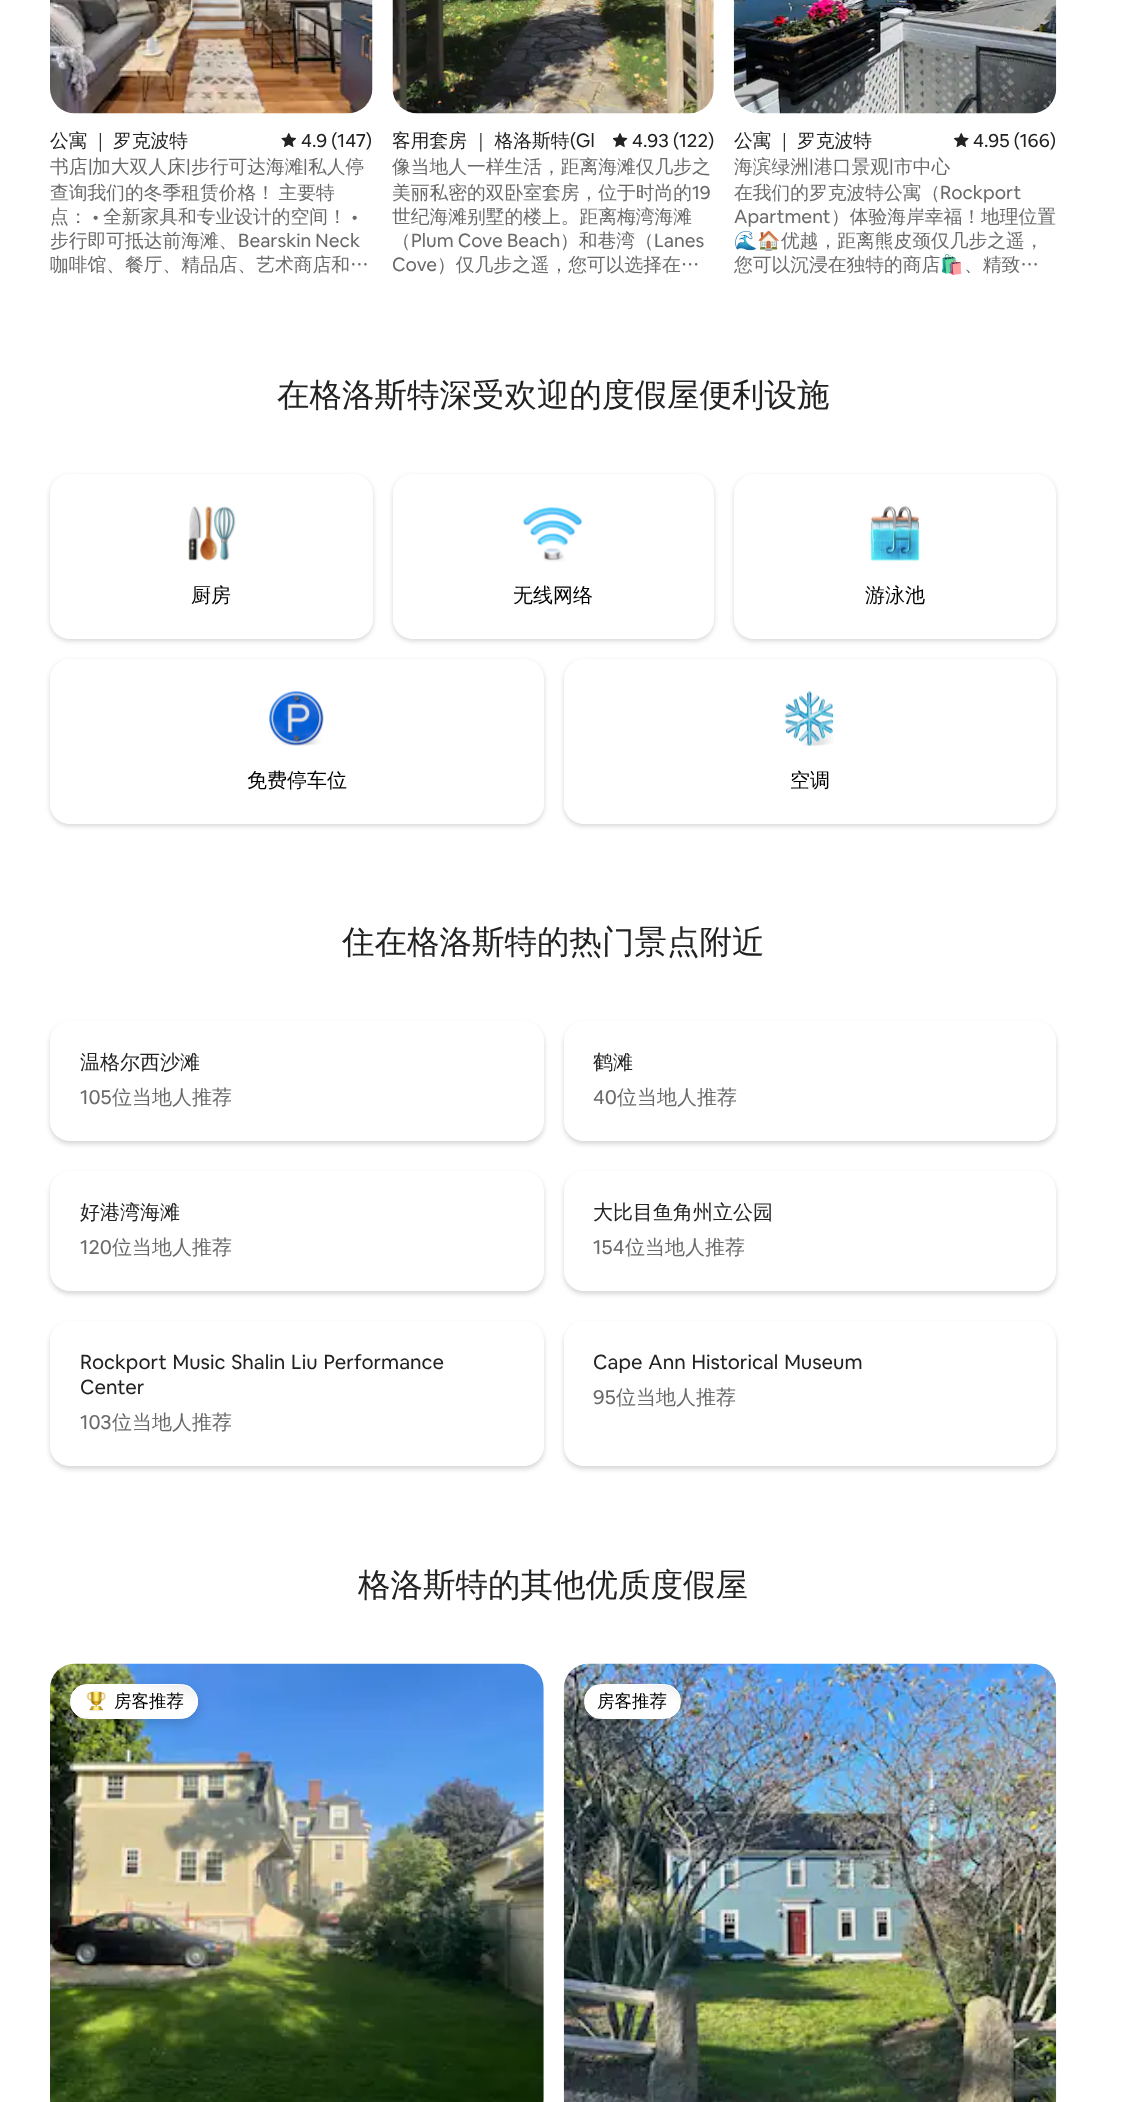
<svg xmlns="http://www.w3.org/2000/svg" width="1124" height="2102">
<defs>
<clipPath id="clip1"><path d="M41 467h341v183h-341zm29 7h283c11 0 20 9 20 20v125c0 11-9 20-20 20h-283c-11 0-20-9-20-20v-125c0-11 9-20 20-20z" clip-rule="evenodd"/></clipPath>
<clipPath id="clip2"><path d="M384 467h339v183h-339zm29 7h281c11 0 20 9 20 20v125c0 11-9 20-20 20h-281c-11 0-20-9-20-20v-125c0-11 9-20 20-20z" clip-rule="evenodd"/></clipPath>
<clipPath id="clip3"><path d="M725 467h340v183h-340zm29 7h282c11 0 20 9 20 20v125c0 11-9 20-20 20h-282c-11 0-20-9-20-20v-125c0-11 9-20 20-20z" clip-rule="evenodd"/></clipPath>
<clipPath id="clip4"><path d="M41 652h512v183h-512zm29 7h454c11 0 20 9 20 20v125c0 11-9 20-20 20h-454c-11 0-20-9-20-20v-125c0-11 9-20 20-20z" clip-rule="evenodd"/></clipPath>
<clipPath id="clip5"><path d="M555 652h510v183h-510zm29 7h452c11 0 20 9 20 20v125c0 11-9 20-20 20h-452c-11 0-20-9-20-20v-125c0-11 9-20 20-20z" clip-rule="evenodd"/></clipPath>
<clipPath id="clip6"><path d="M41 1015h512v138h-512zm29 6h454c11 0 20 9 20 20v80c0 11-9 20-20 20h-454c-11 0-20-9-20-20v-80c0-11 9-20 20-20z" clip-rule="evenodd"/></clipPath>
<clipPath id="clip7"><path d="M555 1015h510v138h-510zm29 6h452c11 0 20 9 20 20v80c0 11-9 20-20 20h-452c-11 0-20-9-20-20v-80c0-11 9-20 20-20z" clip-rule="evenodd"/></clipPath>
<clipPath id="clip8"><path d="M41 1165h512v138h-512zm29 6h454c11 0 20 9 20 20v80c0 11-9 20-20 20h-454c-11 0-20-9-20-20v-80c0-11 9-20 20-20z" clip-rule="evenodd"/></clipPath>
<clipPath id="clip9"><path d="M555 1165h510v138h-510zm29 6h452c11 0 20 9 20 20v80c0 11-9 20-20 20h-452c-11 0-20-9-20-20v-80c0-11 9-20 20-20z" clip-rule="evenodd"/></clipPath>
<clipPath id="clip10"><path d="M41 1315h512v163h-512zm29 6h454c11 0 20 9 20 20v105c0 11-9 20-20 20h-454c-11 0-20-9-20-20v-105c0-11 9-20 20-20z" clip-rule="evenodd"/></clipPath>
<clipPath id="clip11"><path d="M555 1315h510v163h-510zm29 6h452c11 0 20 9 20 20v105c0 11-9 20-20 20h-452c-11 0-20-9-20-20v-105c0-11 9-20 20-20z" clip-rule="evenodd"/></clipPath>
<clipPath id="clip12"><rect x="70" y="1684" width="128" height="35" rx="17.5"/></clipPath>
<linearGradient id="g1" gradientUnits="userSpaceOnUse" x1="126" y1="1732" x2="142" y2="1671"><stop offset="0" stop-color="#f1f1f1"/><stop offset="0.11" stop-color="#fff"/><stop offset="0.7" stop-color="#fff"/><stop offset="0.94" stop-color="#efefef"/></linearGradient>
<linearGradient id="g2" gradientUnits="userSpaceOnUse" x1="251" y1="1732" x2="267" y2="1671"><stop offset="0" stop-color="#f1f1f1"/><stop offset="0.11" stop-color="#fff"/><stop offset="0.7" stop-color="#fff"/><stop offset="0.94" stop-color="#efefef"/></linearGradient>
<clipPath id="clip13"><rect x="584" y="1684" width="97" height="35" rx="17.5"/></clipPath>
<linearGradient id="g3" gradientUnits="userSpaceOnUse" x1="623" y1="1730" x2="642" y2="1672"><stop offset="0" stop-color="#f1f1f1"/><stop offset="0.11" stop-color="#fff"/><stop offset="0.7" stop-color="#fff"/><stop offset="0.94" stop-color="#efefef"/></linearGradient>
</defs>
<rect width="100%" height="100%" fill="#fff"/>
<image x="50" y="0" width="323" height="114" href="media/1.png"/>
<text x="50" y="147" word-spacing="-2" style="font-family:WenQuanYi Zen Hei;font-size:18.75px;font-weight:500;fill:#222">公寓 ｜ 罗克波特</text>
<image x="281" y="133" width="15" height="14" href="media/2.png"/>
<text x="301" y="147" style="font-family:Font;font-size:18.75px;fill:#222">4.9 (147)</text>
<text x="50" y="173" style="font-family:WenQuanYi Zen Hei;font-size:18.75px;font-weight:500;fill:#6a6a6a">书店</text>
<text x="88" y="173" style="font-family:Font;font-size:18.75px;fill:#6a6a6a">|</text>
<text x="92" y="173" style="font-family:WenQuanYi Zen Hei;font-size:18.75px;font-weight:500;fill:#6a6a6a">加大双人床</text>
<text x="186" y="173" style="font-family:Font;font-size:18.75px;fill:#6a6a6a">|</text>
<text x="191" y="173" style="font-family:WenQuanYi Zen Hei;font-size:18.75px;font-weight:500;fill:#6a6a6a">步行可达海滩</text>
<text x="303" y="173" style="font-family:Font;font-size:18.75px;fill:#6a6a6a">|</text>
<text x="308" y="173" style="font-family:WenQuanYi Zen Hei;font-size:18.75px;font-weight:500;fill:#6a6a6a">私人停</text>
<text x="50" y="199" word-spacing="-2" style="font-family:WenQuanYi Zen Hei;font-size:18.75px;font-weight:500;fill:#6a6a6a">查询我们的冬季租赁价格！ 主要特</text>
<text x="50" y="223" style="font-family:WenQuanYi Zen Hei;font-size:18.75px;font-weight:500;fill:#6a6a6a">点：</text>
<text x="92" y="223" style="font-family:Font;font-size:18.75px;fill:#6a6a6a">•</text>
<text x="103" y="223" style="font-family:WenQuanYi Zen Hei;font-size:18.75px;font-weight:500;fill:#6a6a6a">全新家具和专业设计的空间！</text>
<text x="351" y="223" style="font-family:Font;font-size:18.75px;fill:#6a6a6a">•</text>
<text x="50" y="247" style="font-family:WenQuanYi Zen Hei;font-size:18.75px;font-weight:500;fill:#6a6a6a">步行即可抵达前海滩、</text>
<text x="238" y="247" style="font-family:Font;font-size:18.75px;fill:#6a6a6a">Bearskin Neck</text>
<text x="50" y="271" style="font-family:WenQuanYi Zen Hei;font-size:18.75px;font-weight:500;fill:#6a6a6a">咖啡馆、餐厅、精品店、艺术商店和…</text>
<image x="392" y="0" width="322" height="114" href="media/3.png"/>
<text x="392" y="147" word-spacing="-1" style="font-family:WenQuanYi Zen Hei;font-size:18.75px;font-weight:500;fill:#222">客用套房 ｜ 格洛斯特</text>
<text x="570" y="147" style="font-family:Font;font-size:18.75px;fill:#222">(Gl</text>
<image x="613" y="133" width="15" height="14" href="media/4.png"/>
<text x="632" y="147" style="font-family:Font;font-size:18.75px;fill:#222">4.93 (122)</text>
<text x="392" y="173" style="font-family:WenQuanYi Zen Hei;font-size:18.75px;font-weight:500;fill:#6a6a6a">像当地人一样生活，距离海滩仅几步之</text>
<text x="392" y="199" style="font-family:WenQuanYi Zen Hei;font-size:18.75px;font-weight:500;fill:#6a6a6a">美丽私密的双卧室套房，位于时尚的</text>
<text x="692" y="199" style="font-family:Font;font-size:18.75px;fill:#6a6a6a">19</text>
<text x="392" y="223" style="font-family:WenQuanYi Zen Hei;font-size:18.75px;font-weight:500;fill:#6a6a6a">世纪海滩别墅的楼上。距离梅湾海滩</text>
<text x="392" y="247" style="font-family:WenQuanYi Zen Hei;font-size:18.75px;font-weight:500;fill:#6a6a6a">（</text>
<text x="411" y="247" style="font-family:Font;font-size:18.75px;fill:#6a6a6a">Plum Cove Beach</text>
<text x="560" y="247" style="font-family:WenQuanYi Zen Hei;font-size:18.75px;font-weight:500;fill:#6a6a6a">）和巷湾（</text>
<text x="654" y="247" style="font-family:Font;font-size:18.75px;fill:#6a6a6a">Lanes</text>
<text x="392" y="271" style="font-family:Font;font-size:18.75px;fill:#6a6a6a">Cove</text>
<text x="437" y="271" style="font-family:WenQuanYi Zen Hei;font-size:18.75px;font-weight:500;fill:#6a6a6a">）仅几步之遥，您可以选择在…</text>
<image x="733" y="0" width="324" height="114" href="media/5.png"/>
<text x="734" y="147" word-spacing="-2" style="font-family:WenQuanYi Zen Hei;font-size:18.75px;font-weight:500;fill:#222">公寓 ｜ 罗克波特</text>
<image x="954" y="133" width="15" height="14" href="media/6.png"/>
<text x="973" y="147" style="font-family:Font;font-size:18.75px;fill:#222">4.95 (166)</text>
<text x="734" y="173" style="font-family:WenQuanYi Zen Hei;font-size:18.75px;font-weight:500;fill:#6a6a6a">海滨绿洲</text>
<text x="809" y="173" style="font-family:Font;font-size:18.75px;fill:#6a6a6a">|</text>
<text x="814" y="173" style="font-family:WenQuanYi Zen Hei;font-size:18.75px;font-weight:500;fill:#6a6a6a">港口景观</text>
<text x="889" y="173" style="font-family:Font;font-size:18.75px;fill:#6a6a6a">|</text>
<text x="894" y="173" style="font-family:WenQuanYi Zen Hei;font-size:18.75px;font-weight:500;fill:#6a6a6a">市中心</text>
<text x="734" y="199" style="font-family:WenQuanYi Zen Hei;font-size:18.75px;font-weight:500;fill:#6a6a6a">在我们的罗克波特公寓（</text>
<text x="940" y="199" style="font-family:Font;font-size:18.75px;fill:#6a6a6a">Rockport</text>
<text x="734" y="223" style="font-family:Font;font-size:18.75px;fill:#6a6a6a">Apartment</text>
<text x="831" y="223" style="font-family:WenQuanYi Zen Hei;font-size:18.75px;font-weight:500;fill:#6a6a6a">）体验海岸幸福！地理位置</text>
<text x="734" y="247" style="font-family:Noto Color Emoji;font-size:18.75px;fill:#6a6a6a">🌊🏠</text>
<text x="781" y="247" style="font-family:WenQuanYi Zen Hei;font-size:18.75px;font-weight:500;fill:#6a6a6a">优越，距离熊皮颈仅几步之遥，</text>
<text x="734" y="271" style="font-family:WenQuanYi Zen Hei;font-size:18.75px;font-weight:500;fill:#6a6a6a">您可以沉浸在独特的商店</text>
<text x="940" y="271" style="font-family:Noto Color Emoji;font-size:18.75px;fill:#6a6a6a">🛍️</text>
<text x="964" y="271" style="font-family:WenQuanYi Zen Hei;font-size:18.75px;font-weight:500;fill:#6a6a6a">、精致…</text>
<text x="277" y="406" style="font-family:WenQuanYi Zen Hei;font-size:32.5px;font-weight:500;fill:#222">在格洛斯特深受欢迎的度假屋便利设施</text>
<g clip-path="url(#clip1)">
<rect x="50" y="476" width="323" height="165" rx="20" fill="#00000029" filter="blur(2.5px)"/>
</g>
<image x="188" y="506" width="48" height="55" href="media/7.png"/>
<text x="191" y="602" style="font-family:WenQuanYi Zen Hei;font-size:20px;font-weight:500;fill:#000">厨房</text>
<g clip-path="url(#clip2)">
<rect x="393" y="476" width="321" height="165" rx="20" fill="#00000029" filter="blur(2.5px)"/>
</g>
<image x="523" y="507" width="59" height="55" href="media/8.png"/>
<text x="513" y="602" style="font-family:WenQuanYi Zen Hei;font-size:20px;font-weight:500;fill:#000">无线网络</text>
<g clip-path="url(#clip3)">
<rect x="734" y="476" width="322" height="165" rx="20" fill="#00000029" filter="blur(2.5px)"/>
</g>
<image x="870" y="506" width="50" height="57" href="media/9.png"/>
<text x="865" y="602" style="font-family:WenQuanYi Zen Hei;font-size:20px;font-weight:500;fill:#000">游泳池</text>
<g clip-path="url(#clip4)">
<rect x="50" y="661" width="494" height="165" rx="20" fill="#00000029" filter="blur(2.5px)"/>
</g>
<image x="269" y="691" width="55" height="55" href="media/10.png"/>
<text x="247" y="787" style="font-family:WenQuanYi Zen Hei;font-size:20px;font-weight:500;fill:#000">免费停车位</text>
<g clip-path="url(#clip5)">
<rect x="564" y="661" width="492" height="165" rx="20" fill="#00000029" filter="blur(2.5px)"/>
</g>
<image x="785" y="691" width="49" height="55" href="media/11.png"/>
<text x="790" y="787" style="font-family:WenQuanYi Zen Hei;font-size:20px;font-weight:500;fill:#000">空调</text>
<text x="342" y="953" style="font-family:WenQuanYi Zen Hei;font-size:32.5px;font-weight:500;fill:#222">住在格洛斯特的热门景点附近</text>
<g clip-path="url(#clip6)">
<rect x="50" y="1024" width="494" height="120" rx="20" fill="#00000029" filter="blur(2.5px)"/>
</g>
<text x="80" y="1069" style="font-family:WenQuanYi Zen Hei;font-size:20px;font-weight:500;fill:#222">温格尔西沙滩</text>
<text x="80" y="1104" style="font-family:Font;font-size:20px;fill:#6a6a6a">105</text>
<text x="112" y="1104" style="font-family:WenQuanYi Zen Hei;font-size:20px;font-weight:500;fill:#6a6a6a">位当地人推荐</text>
<g clip-path="url(#clip7)">
<rect x="564" y="1024" width="492" height="120" rx="20" fill="#00000029" filter="blur(2.5px)"/>
</g>
<text x="593" y="1069" style="font-family:WenQuanYi Zen Hei;font-size:20px;font-weight:500;fill:#222">鹤滩</text>
<text x="593" y="1104" style="font-family:Font;font-size:20px;fill:#6a6a6a">40</text>
<text x="617" y="1104" style="font-family:WenQuanYi Zen Hei;font-size:20px;font-weight:500;fill:#6a6a6a">位当地人推荐</text>
<g clip-path="url(#clip8)">
<rect x="50" y="1174" width="494" height="120" rx="20" fill="#00000029" filter="blur(2.5px)"/>
</g>
<text x="80" y="1219" style="font-family:WenQuanYi Zen Hei;font-size:20px;font-weight:500;fill:#222">好港湾海滩</text>
<text x="80" y="1254" style="font-family:Font;font-size:20px;fill:#6a6a6a">120</text>
<text x="112" y="1254" style="font-family:WenQuanYi Zen Hei;font-size:20px;font-weight:500;fill:#6a6a6a">位当地人推荐</text>
<g clip-path="url(#clip9)">
<rect x="564" y="1174" width="492" height="120" rx="20" fill="#00000029" filter="blur(2.5px)"/>
</g>
<text x="593" y="1219" style="font-family:WenQuanYi Zen Hei;font-size:20px;font-weight:500;fill:#222">大比目鱼角州立公园</text>
<text x="593" y="1254" style="font-family:Font;font-size:20px;fill:#6a6a6a">154</text>
<text x="625" y="1254" style="font-family:WenQuanYi Zen Hei;font-size:20px;font-weight:500;fill:#6a6a6a">位当地人推荐</text>
<g clip-path="url(#clip10)">
<rect x="50" y="1324" width="494" height="145" rx="20" fill="#00000029" filter="blur(2.5px)"/>
</g>
<text x="80" y="1369" word-spacing="1.5" style="font-family:Font;font-size:20px;fill:#222">Rockport Music Shalin Liu Performance</text>
<text x="80" y="1394" style="font-family:Font;font-size:20px;fill:#222">Center</text>
<text x="80" y="1429" style="font-family:Font;font-size:20px;fill:#6a6a6a">103</text>
<text x="112" y="1429" style="font-family:WenQuanYi Zen Hei;font-size:20px;font-weight:500;fill:#6a6a6a">位当地人推荐</text>
<g clip-path="url(#clip11)">
<rect x="564" y="1324" width="492" height="145" rx="20" fill="#00000029" filter="blur(2.5px)"/>
</g>
<text x="593" y="1369" word-spacing="1.5" style="font-family:Font;font-size:20px;fill:#222">Cape Ann Historical Museum</text>
<text x="593" y="1404" style="font-family:Font;font-size:20px;fill:#6a6a6a">95</text>
<text x="616" y="1404" style="font-family:WenQuanYi Zen Hei;font-size:20px;font-weight:500;fill:#6a6a6a">位当地人推荐</text>
<text x="358" y="1596" style="font-family:WenQuanYi Zen Hei;font-size:32.5px;font-weight:500;fill:#222">格洛斯特的其他优质度假屋</text>
<image x="50" y="1663" width="494" height="439" href="media/12.png"/>
<rect x="70" y="1689" width="128" height="35" rx="17.5" fill="#00000029" filter="blur(6px)"/>
<g clip-path="url(#clip12)">
<rect x="71" y="1685" width="125" height="33" fill="url(#g1)"/>
<rect x="196" y="1685" width="2" height="33" fill="url(#g2)"/>
</g>
<rect x="70.5" y="1684.5" width="127" height="34" rx="17" fill="none" stroke="#fff"/>
<image x="82" y="1684" width="24" height="33" href="media/13.png"/>
<text x="114" y="1707" style="font-family:WenQuanYi Zen Hei;font-size:17.5px;font-weight:500;fill:#000">房客推荐</text>
<image x="563" y="1663" width="494" height="439" href="media/14.png"/>
<rect x="584" y="1689" width="97" height="35" rx="17.5" fill="#00000029" filter="blur(6px)"/>
<g clip-path="url(#clip13)">
<rect x="585" y="1685" width="95" height="33" fill="url(#g3)"/>
</g>
<rect x="584.5" y="1684.5" width="96" height="34" rx="17" fill="none" stroke="#fff"/>
<text x="597" y="1707" style="font-family:WenQuanYi Zen Hei;font-size:17.5px;font-weight:500;fill:#000">房客推荐</text>
</svg>
